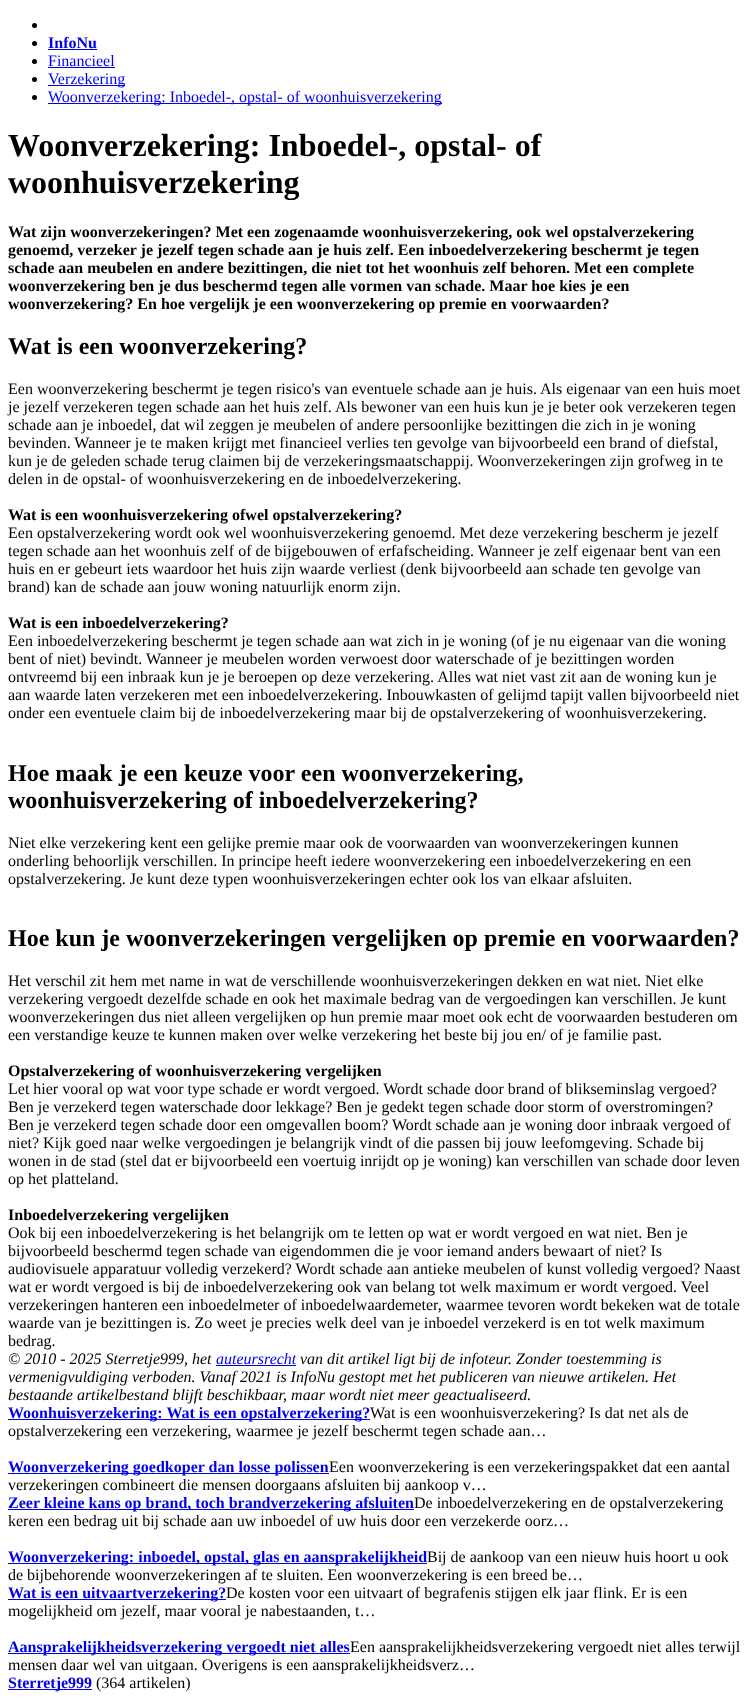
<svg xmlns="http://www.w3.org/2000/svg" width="750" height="1702">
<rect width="100%" height="100%" fill="#fff"/>
<circle cx="34.5" cy="25.5" r="2.5" fill="#000"/>
<circle cx="34.5" cy="43.5" r="2.5" fill="#000"/>
<text x="48" y="48" style="font-family:Liberation Serif;font-size:16px;font-weight:bold;fill:#00e">InfoNu</text>
<rect x="48" y="49" width="49" height="1" fill="#00e"/>
<circle cx="34.5" cy="61.5" r="2.5" fill="#000"/>
<text x="48" y="66" style="font-family:Liberation Serif;font-size:16px;fill:#00e">Financieel</text>
<rect x="48" y="67" width="67" height="1" fill="#00e"/>
<circle cx="34.5" cy="79.5" r="2.5" fill="#000"/>
<rect x="48" y="85" width="77" height="1" fill="#00e"/>
<text x="48" y="84" style="font-family:Liberation Serif;font-size:16px;fill:#00e">Verzekering</text>
<circle cx="34.5" cy="97.5" r="2.5" fill="#000"/>
<rect x="48" y="103" width="394" height="1" fill="#00e"/>
<text x="48" y="102" style="font-family:Liberation Serif;font-size:16px;fill:#00e">Woonverzekering: Inboedel-, opstal- of woonhuisverzekering</text>
<text x="8" y="156" style="font-family:Liberation Serif;font-size:32px;font-weight:bold;fill:#000">Woonverzekering: Inboedel-, opstal- of</text>
<text x="8" y="193" style="font-family:Liberation Serif;font-size:32px;font-weight:bold;fill:#000">woonhuisverzekering</text>
<text x="8" y="237" style="font-family:Liberation Serif;font-size:16px;font-weight:bold;fill:#000">Wat zijn woonverzekeringen? Met een zogenaamde woonhuisverzekering, ook wel opstalverzekering</text>
<text x="8" y="255" style="font-family:Liberation Serif;font-size:16px;font-weight:bold;fill:#000">genoemd, verzeker je jezelf tegen schade aan je huis zelf. Een inboedelverzekering beschermt je tegen</text>
<text x="8" y="273" style="font-family:Liberation Serif;font-size:16px;font-weight:bold;fill:#000">schade aan meubelen en andere bezittingen, die niet tot het woonhuis zelf behoren. Met een complete</text>
<text x="8" y="291" style="font-family:Liberation Serif;font-size:16px;font-weight:bold;fill:#000">woonverzekering ben je dus beschermd tegen alle vormen van schade. Maar hoe kies je een</text>
<text x="8" y="309" style="font-family:Liberation Serif;font-size:16px;font-weight:bold;fill:#000">woonverzekering? En hoe vergelijk je een woonverzekering op premie en voorwaarden?</text>
<text x="8" y="354" style="font-family:Liberation Serif;font-size:24px;font-weight:bold;fill:#000">Wat is een woonverzekering?</text>
<text x="8" y="394" style="font-family:Liberation Serif;font-size:16px;fill:#000">Een woonverzekering beschermt je tegen risico's van eventuele schade aan je huis. Als eigenaar van een huis moet</text>
<text x="8" y="412" style="font-family:Liberation Serif;font-size:16px;fill:#000">je jezelf verzekeren tegen schade aan het huis zelf. Als bewoner van een huis kun je je beter ook verzekeren tegen</text>
<text x="8" y="430" style="font-family:Liberation Serif;font-size:16px;fill:#000">schade aan je inboedel, dat wil zeggen je meubelen of andere persoonlijke bezittingen die zich in je woning</text>
<text x="8" y="448" style="font-family:Liberation Serif;font-size:16px;fill:#000">bevinden. Wanneer je te maken krijgt met financieel verlies ten gevolge van bijvoorbeeld een brand of diefstal,</text>
<text x="8" y="466" style="font-family:Liberation Serif;font-size:16px;fill:#000">kun je de geleden schade terug claimen bij de verzekeringsmaatschappij. Woonverzekeringen zijn grofweg in te</text>
<text x="8" y="484" style="font-family:Liberation Serif;font-size:16px;fill:#000">delen in de opstal- of woonhuisverzekering en de inboedelverzekering.</text>
<text x="8" y="520" style="font-family:Liberation Serif;font-size:16px;font-weight:bold;fill:#000">Wat is een woonhuisverzekering ofwel opstalverzekering?</text>
<text x="8" y="538" style="font-family:Liberation Serif;font-size:16px;fill:#000">Een opstalverzekering wordt ook wel woonhuisverzekering genoemd. Met deze verzekering bescherm je jezelf</text>
<text x="8" y="556" style="font-family:Liberation Serif;font-size:16px;fill:#000">tegen schade aan het woonhuis zelf of de bijgebouwen of erfafscheiding. Wanneer je zelf eigenaar bent van een</text>
<text x="8" y="574" style="font-family:Liberation Serif;font-size:16px;fill:#000">huis en er gebeurt iets waardoor het huis zijn waarde verliest (denk bijvoorbeeld aan schade ten gevolge van</text>
<text x="8" y="592" style="font-family:Liberation Serif;font-size:16px;fill:#000">brand) kan de schade aan jouw woning natuurlijk enorm zijn.</text>
<text x="8" y="628" style="font-family:Liberation Serif;font-size:16px;font-weight:bold;fill:#000">Wat is een inboedelverzekering?</text>
<text x="8" y="646" style="font-family:Liberation Serif;font-size:16px;fill:#000">Een inboedelverzekering beschermt je tegen schade aan wat zich in je woning (of je nu eigenaar van die woning</text>
<text x="8" y="664" style="font-family:Liberation Serif;font-size:16px;fill:#000">bent of niet) bevindt. Wanneer je meubelen worden verwoest door waterschade of je bezittingen worden</text>
<text x="8" y="682" style="font-family:Liberation Serif;font-size:16px;fill:#000">ontvreemd bij een inbraak kun je je beroepen op deze verzekering. Alles wat niet vast zit aan de woning kun je</text>
<text x="8" y="700" style="font-family:Liberation Serif;font-size:16px;fill:#000">aan waarde laten verzekeren met een inboedelverzekering. Inbouwkasten of gelijmd tapijt vallen bijvoorbeeld niet</text>
<text x="8" y="718" style="font-family:Liberation Serif;font-size:16px;fill:#000">onder een eventuele claim bij de inboedelverzekering maar bij de opstalverzekering of woonhuisverzekering.</text>
<text x="8" y="781" style="font-family:Liberation Serif;font-size:24px;font-weight:bold;fill:#000">Hoe maak je een keuze voor een woonverzekering,</text>
<text x="8" y="808" style="font-family:Liberation Serif;font-size:24px;font-weight:bold;fill:#000">woonhuisverzekering of inboedelverzekering?</text>
<text x="8" y="848" style="font-family:Liberation Serif;font-size:16px;fill:#000">Niet elke verzekering kent een gelijke premie maar ook de voorwaarden van woonverzekeringen kunnen</text>
<text x="8" y="866" style="font-family:Liberation Serif;font-size:16px;fill:#000">onderling behoorlijk verschillen. In principe heeft iedere woonverzekering een inboedelverzekering en een</text>
<text x="8" y="884" style="font-family:Liberation Serif;font-size:16px;fill:#000">opstalverzekering. Je kunt deze typen woonhuisverzekeringen echter ook los van elkaar afsluiten.</text>
<text x="8" y="946" style="font-family:Liberation Serif;font-size:24px;font-weight:bold;fill:#000">Hoe kun je woonverzekeringen vergelijken op premie en voorwaarden?</text>
<text x="8" y="986" style="font-family:Liberation Serif;font-size:16px;fill:#000">Het verschil zit hem met name in wat de verschillende woonhuisverzekeringen dekken en wat niet. Niet elke</text>
<text x="8" y="1004" style="font-family:Liberation Serif;font-size:16px;fill:#000">verzekering vergoedt dezelfde schade en ook het maximale bedrag van de vergoedingen kan verschillen. Je kunt</text>
<text x="8" y="1022" style="font-family:Liberation Serif;font-size:16px;fill:#000">woonverzekeringen dus niet alleen vergelijken op hun premie maar moet ook echt de voorwaarden bestuderen om</text>
<text x="8" y="1040" style="font-family:Liberation Serif;font-size:16px;fill:#000">een verstandige keuze te kunnen maken over welke verzekering het beste bij jou en/ of je familie past.</text>
<text x="8" y="1076" style="font-family:Liberation Serif;font-size:16px;font-weight:bold;fill:#000">Opstalverzekering of woonhuisverzekering vergelijken</text>
<text x="8" y="1094" style="font-family:Liberation Serif;font-size:16px;fill:#000">Let hier vooral op wat voor type schade er wordt vergoed. Wordt schade door brand of blikseminslag vergoed?</text>
<text x="8" y="1112" style="font-family:Liberation Serif;font-size:16px;fill:#000">Ben je verzekerd tegen waterschade door lekkage? Ben je gedekt tegen schade door storm of overstromingen?</text>
<text x="8" y="1130" style="font-family:Liberation Serif;font-size:16px;fill:#000">Ben je verzekerd tegen schade door een omgevallen boom? Wordt schade aan je woning door inbraak vergoed of</text>
<text x="8" y="1148" style="font-family:Liberation Serif;font-size:16px;fill:#000">niet? Kijk goed naar welke vergoedingen je belangrijk vindt of die passen bij jouw leefomgeving. Schade bij</text>
<text x="8" y="1166" style="font-family:Liberation Serif;font-size:16px;fill:#000">wonen in de stad (stel dat er bijvoorbeeld een voertuig inrijdt op je woning) kan verschillen van schade door leven</text>
<text x="8" y="1184" style="font-family:Liberation Serif;font-size:16px;fill:#000">op het platteland.</text>
<text x="8" y="1220" style="font-family:Liberation Serif;font-size:16px;font-weight:bold;fill:#000">Inboedelverzekering vergelijken</text>
<text x="8" y="1238" style="font-family:Liberation Serif;font-size:16px;fill:#000">Ook bij een inboedelverzekering is het belangrijk om te letten op wat er wordt vergoed en wat niet. Ben je</text>
<text x="8" y="1256" style="font-family:Liberation Serif;font-size:16px;fill:#000">bijvoorbeeld beschermd tegen schade van eigendommen die je voor iemand anders bewaart of niet? Is</text>
<text x="8" y="1274" style="font-family:Liberation Serif;font-size:16px;fill:#000">audiovisuele apparatuur volledig verzekerd? Wordt schade aan antieke meubelen of kunst volledig vergoed? Naast</text>
<text x="8" y="1292" style="font-family:Liberation Serif;font-size:16px;fill:#000">wat er wordt vergoed is bij de inboedelverzekering ook van belang tot welk maximum er wordt vergoed. Veel</text>
<text x="8" y="1310" style="font-family:Liberation Serif;font-size:16px;fill:#000">verzekeringen hanteren een inboedelmeter of inboedelwaardemeter, waarmee tevoren wordt bekeken wat de totale</text>
<text x="8" y="1328" style="font-family:Liberation Serif;font-size:16px;fill:#000">waarde van je bezittingen is. Zo weet je precies welk deel van je inboedel verzekerd is en tot welk maximum</text>
<text x="8" y="1346" style="font-family:Liberation Serif;font-size:16px;fill:#000">bedrag.</text>
<text x="8" y="1364" style="font-family:Liberation Serif;font-size:16px;font-style:italic;fill:#000">© 2010 - 2025 Sterretje999, het</text>
<text x="216" y="1364" style="font-family:Liberation Serif;font-size:16px;font-style:italic;fill:#00e">auteursrecht</text>
<rect x="216" y="1365" width="80" height="1" fill="#00e"/>
<text x="300" y="1364" style="font-family:Liberation Serif;font-size:16px;font-style:italic;fill:#000">van dit artikel ligt bij de infoteur. Zonder toestemming is</text>
<text x="8" y="1382" style="font-family:Liberation Serif;font-size:16px;font-style:italic;fill:#000">vermenigvuldiging verboden. Vanaf 2021 is InfoNu gestopt met het publiceren van nieuwe artikelen. Het</text>
<text x="8" y="1400" style="font-family:Liberation Serif;font-size:16px;font-style:italic;fill:#000">bestaande artikelbestand blijft beschikbaar, maar wordt niet meer geactualiseerd.</text>
<rect x="8" y="1419" width="362" height="1" fill="#00e"/>
<text x="8" y="1418" style="font-family:Liberation Serif;font-size:16px;font-weight:bold;fill:#00e">Woonhuisverzekering: Wat is een opstalverzekering?</text>
<text x="370" y="1418" style="font-family:Liberation Serif;font-size:16px;fill:#000">Wat is een woonhuisverzekering? Is dat net als de</text>
<text x="8" y="1436" style="font-family:Liberation Serif;font-size:16px;fill:#000">opstalverzekering een verzekering, waarmee je jezelf beschermt tegen schade aan…</text>
<rect x="8" y="1473" width="321" height="1" fill="#00e"/>
<text x="8" y="1472" style="font-family:Liberation Serif;font-size:16px;font-weight:bold;fill:#00e">Woonverzekering goedkoper dan losse polissen</text>
<text x="329" y="1472" style="font-family:Liberation Serif;font-size:16px;fill:#000">Een woonverzekering is een verzekeringspakket dat een aantal</text>
<text x="8" y="1490" style="font-family:Liberation Serif;font-size:16px;fill:#000">verzekeringen combineert die mensen doorgaans afsluiten bij aankoop v…</text>
<rect x="8" y="1509" width="406" height="1" fill="#00e"/>
<text x="8" y="1508" style="font-family:Liberation Serif;font-size:16px;font-weight:bold;fill:#00e">Zeer kleine kans op brand, toch brandverzekering afsluiten</text>
<text x="414" y="1508" style="font-family:Liberation Serif;font-size:16px;fill:#000">De inboedelverzekering en de opstalverzekering</text>
<text x="8" y="1526" style="font-family:Liberation Serif;font-size:16px;fill:#000">keren een bedrag uit bij schade aan uw inboedel of uw huis door een verzekerde oorz…</text>
<rect x="8" y="1563" width="419" height="1" fill="#00e"/>
<text x="8" y="1562" style="font-family:Liberation Serif;font-size:16px;font-weight:bold;fill:#00e">Woonverzekering: inboedel, opstal, glas en aansprakelijkheid</text>
<text x="427" y="1562" style="font-family:Liberation Serif;font-size:16px;fill:#000">Bij de aankoop van een nieuw huis hoort u ook</text>
<text x="8" y="1580" style="font-family:Liberation Serif;font-size:16px;fill:#000">de bijbehorende woonverzekeringen af te sluiten. Een woonverzekering is een breed be…</text>
<rect x="8" y="1599" width="218" height="1" fill="#00e"/>
<text x="8" y="1598" style="font-family:Liberation Serif;font-size:16px;font-weight:bold;fill:#00e">Wat is een uitvaartverzekering?</text>
<text x="226" y="1598" style="font-family:Liberation Serif;font-size:16px;fill:#000">De kosten voor een uitvaart of begrafenis stijgen elk jaar flink. Er is een</text>
<text x="8" y="1616" style="font-family:Liberation Serif;font-size:16px;fill:#000">mogelijkheid om jezelf, maar vooral je nabestaanden, t…</text>
<rect x="8" y="1653" width="342" height="1" fill="#00e"/>
<text x="8" y="1652" style="font-family:Liberation Serif;font-size:16px;font-weight:bold;fill:#00e">Aansprakelijkheidsverzekering vergoedt niet alles</text>
<text x="350" y="1652" style="font-family:Liberation Serif;font-size:16px;fill:#000">Een aansprakelijkheidsverzekering vergoedt niet alles terwijl</text>
<text x="8" y="1670" style="font-family:Liberation Serif;font-size:16px;fill:#000">mensen daar wel van uitgaan. Overigens is een aansprakelijkheidsverz…</text>
<rect x="8" y="1689" width="84" height="1" fill="#00e"/>
<text x="8" y="1688" style="font-family:Liberation Serif;font-size:16px;font-weight:bold;fill:#00e">Sterretje999</text>
<text x="96" y="1688" style="font-family:Liberation Serif;font-size:16px;fill:#000">(364 artikelen)</text>
</svg>
